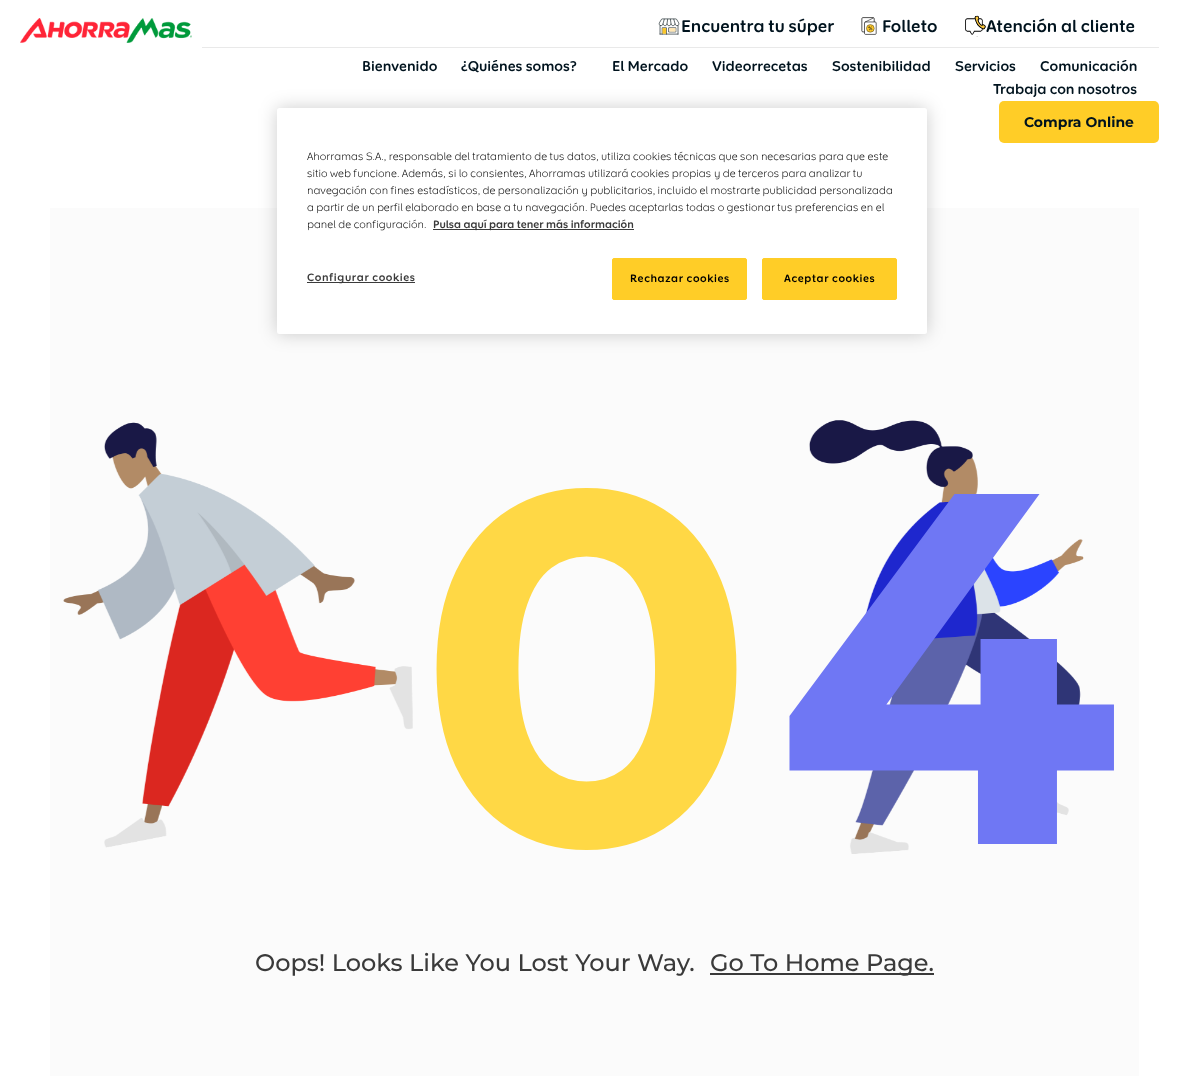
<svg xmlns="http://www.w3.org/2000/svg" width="1189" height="1076">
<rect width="100%" height="100%" fill="#fbfbfb"/>
<rect width="1189" height="158" fill="#fff"/>
<image x="20" y="18" width="172" height="25" href="media/1.png"/>
<rect x="202" y="47" width="957" height="1" fill="#e9e9e9"/>
<image x="658" y="18" width="22" height="17" href="media/2.png"/>
<text x="681" y="32" style="font-family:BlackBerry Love;font-size:18px;font-weight:bold;fill:#00131e">Encuentra tu súper</text>
<image x="861" y="17" width="16" height="18" href="media/3.png"/>
<text x="882" y="32" style="font-family:BlackBerry Love;font-size:18px;font-weight:bold;fill:#00131e">Folleto</text>
<image x="965" y="15" width="21" height="22" href="media/4.png"/>
<text x="986" y="32" style="font-family:BlackBerry Love;font-size:18px;font-weight:bold;fill:#00131e">Atención al cliente</text>
<text x="362" y="71" style="font-family:BlackBerry Love;font-size:15px;font-weight:bold;fill:#00131e">Bienvenido</text>
<text x="461" y="71" style="font-family:BlackBerry Love;font-size:15px;font-weight:bold;fill:#00131e">¿Quiénes somos?</text>
<text x="612" y="71" style="font-family:BlackBerry Love;font-size:15px;font-weight:bold;fill:#00131e">El Mercado</text>
<text x="712" y="71" style="font-family:BlackBerry Love;font-size:15px;font-weight:bold;fill:#00131e">Videorrecetas</text>
<text x="832" y="71" style="font-family:BlackBerry Love;font-size:15px;font-weight:bold;fill:#00131e">Sostenibilidad</text>
<text x="955" y="71" style="font-family:BlackBerry Love;font-size:15px;font-weight:bold;fill:#00131e">Servicios</text>
<text x="1040" y="71" style="font-family:BlackBerry Love;font-size:15px;font-weight:bold;fill:#00131e">Comunicación</text>
<text x="993" y="94" style="font-family:BlackBerry Love;font-size:15px;font-weight:bold;fill:#00131e">Trabaja con nosotros</text>
<rect x="999" y="101" width="160" height="42" rx="5" fill="#ffcd27"/>
<text x="1024" y="127" style="font-family:Montserrat;font-size:14px;font-weight:bold;fill:#00131e">Compra Online</text>
<rect x="50" y="158" width="1089" height="50" fill="#fff"/>
<rect x="277" y="108" width="650" height="226" rx="2.5" fill="#00000033" filter="blur(9px)"/>
<rect x="277" y="108" width="650" height="226" rx="2.5" fill="#fff"/>
<text x="307" y="160" style="font-family:BlackBerry Love;font-size:11.38px;font-weight:500;fill:#000">Ahorramas S.A., responsable del tratamiento de tus datos, utiliza cookies técnicas que son necesarias para que este</text>
<text x="307" y="177" style="font-family:BlackBerry Love;font-size:11.38px;font-weight:500;fill:#000">sitio web funcione. Además, si lo consientes, Ahorramas utilizará cookies propias y de terceros para analizar tu</text>
<text x="307" y="194" style="font-family:BlackBerry Love;font-size:11.38px;font-weight:500;fill:#000">navegación con fines estadísticos, de personalización y publicitarios, incluido el mostrarte publicidad personalizada</text>
<text x="307" y="211" style="font-family:BlackBerry Love;font-size:11.38px;font-weight:500;fill:#000">a partir de un perfil elaborado en base a tu navegación. Puedes aceptarlas todas o gestionar tus preferencias en el</text>
<text x="307" y="228" style="font-family:BlackBerry Love;font-size:11.38px;font-weight:500;fill:#000">panel de configuración.</text>
<rect x="433" y="229" width="201" height="1" fill="#3b3b3b"/>
<text x="433" y="228" style="font-family:BlackBerry Love;font-size:11.38px;font-weight:bold;fill:#3a3a3a">Pulsa aquí para tener más información</text>
<rect x="307" y="282" width="108" height="1" fill="#3b3b3b"/>
<text x="307" y="281" style="font-family:BlackBerry Love;font-size:11.38px;font-weight:bold;letter-spacing:0.6px;fill:#3a3a3a">Configurar cookies</text>
<rect x="612.5" y="258.5" width="134" height="41" rx="1.5" fill="#ffcd27" stroke="#ffcd27"/>
<text x="630" y="282" style="font-family:BlackBerry Love;font-size:11.38px;font-weight:bold;letter-spacing:0.6px;fill:#000">Rechazar cookies</text>
<rect x="762.5" y="258.5" width="134" height="41" rx="1.5" fill="#ffcd27" stroke="#ffcd27"/>
<text x="784" y="282" style="font-family:BlackBerry Love;font-size:11.38px;font-weight:bold;letter-spacing:0.6px;fill:#000">Aceptar cookies</text>
<rect x="1139" y="158" width="50" height="918" fill="#fff"/>
<rect y="158" width="50" height="918" fill="#fff"/>
<image x="63" y="422" width="350" height="426" href="media/5.png"/>
<image x="809" y="420" width="275" height="434" href="media/6.png"/>
<text x="417" y="844" style="font-family:Montserrat;font-size:500px;font-weight:bold;fill:#ffd845">0</text>
<text x="774" y="844" style="font-family:Montserrat;font-size:500px;font-weight:bold;fill:#6f77f4">4</text>
<text x="255" y="971" style="font-family:Montserrat;font-size:24px;font-weight:500;fill:#3a3a3a">Oops! Looks Like You Lost Your Way.</text>
<rect x="710" y="973" width="224" height="2" fill="#3a3a3a"/>
<text x="710" y="971" style="font-family:Montserrat;font-size:24px;font-weight:500;fill:#3a3a3a">Go To Home Page.</text>
</svg>
